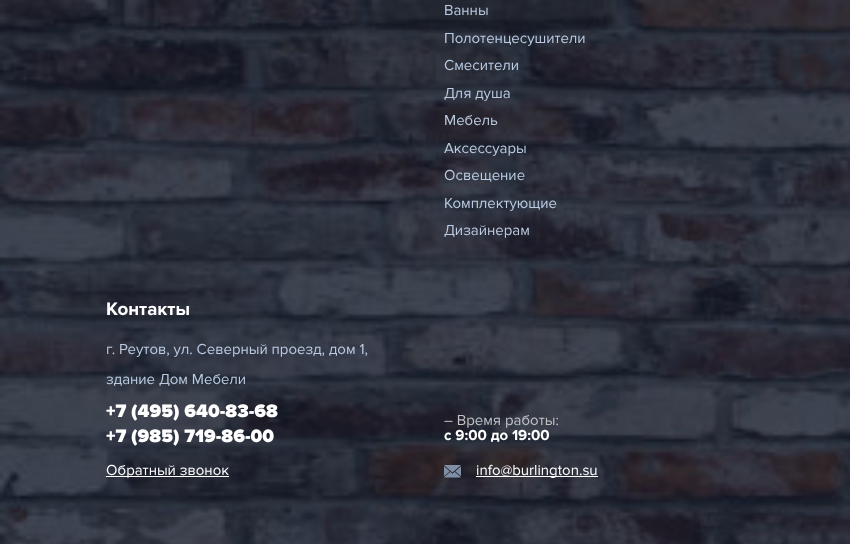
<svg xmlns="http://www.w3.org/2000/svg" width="850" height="544">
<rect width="100%" height="100%" fill="#fff"/>
<image x="0" y="0" width="850" height="544" href="media/1.png"/>
<text x="444" y="15" style="font-family:Proxima Nova;font-size:15px;fill:#bacbe2">Ванны</text>
<text x="444" y="43" style="font-family:Proxima Nova;font-size:15px;fill:#bacbe2">Полотенцесушители</text>
<text x="444" y="70" style="font-family:Proxima Nova;font-size:15px;fill:#bacbe2">Смесители</text>
<text x="444" y="98" style="font-family:Proxima Nova;font-size:15px;fill:#bacbe2">Для душа</text>
<text x="444" y="125" style="font-family:Proxima Nova;font-size:15px;fill:#bacbe2">Мебель</text>
<text x="444" y="153" style="font-family:Proxima Nova;font-size:15px;fill:#bacbe2">Аксессуары</text>
<text x="444" y="180" style="font-family:Proxima Nova;font-size:15px;fill:#bacbe2">Освещение</text>
<text x="444" y="208" style="font-family:Proxima Nova;font-size:15px;fill:#bacbe2">Комплектующие</text>
<text x="444" y="235" style="font-family:Proxima Nova;font-size:15px;fill:#bacbe2">Дизайнерам</text>
<text x="106" y="315" style="font-family:Proxima Nova;font-size:18.75px;font-weight:bold;fill:#fff">Контакты</text>
<text x="106" y="354" style="font-family:Proxima Nova;font-size:15px;fill:#bacbe2">г. Реутов, ул. Северный проезд, дом 1,</text>
<text x="106" y="384" style="font-family:Proxima Nova;font-size:15px;fill:#bacbe2">здание Дом Мебели</text>
<text x="106" y="417" style="font-family:Proxima Nova;font-size:18.75px;font-weight:900;fill:#fff">+7 (495) 640-83-68</text>
<text x="106" y="442" style="font-family:Proxima Nova;font-size:18.75px;font-weight:900;fill:#fff">+7 (985) 719-86-00</text>
<rect x="106" y="476" width="123" height="1" fill="#fff"/>
<text x="106" y="475" style="font-family:Proxima Nova;font-size:15px;fill:#fff">Обратный звонок</text>
<text x="444" y="425" style="font-family:Proxima Nova;font-size:15px;fill:#c1c2c5">– Время работы:</text>
<text x="444" y="440" style="font-family:Proxima Nova;font-size:15px;font-weight:bold;fill:#fff">с 9:00 до 19:00</text>
<image x="444" y="465" width="17" height="13" href="media/2.png"/>
<rect x="476" y="476" width="122" height="1" fill="#fff"/>
<text x="476" y="475" style="font-family:Proxima Nova;font-size:15px;fill:#fff">info@burlington.su</text>
</svg>
